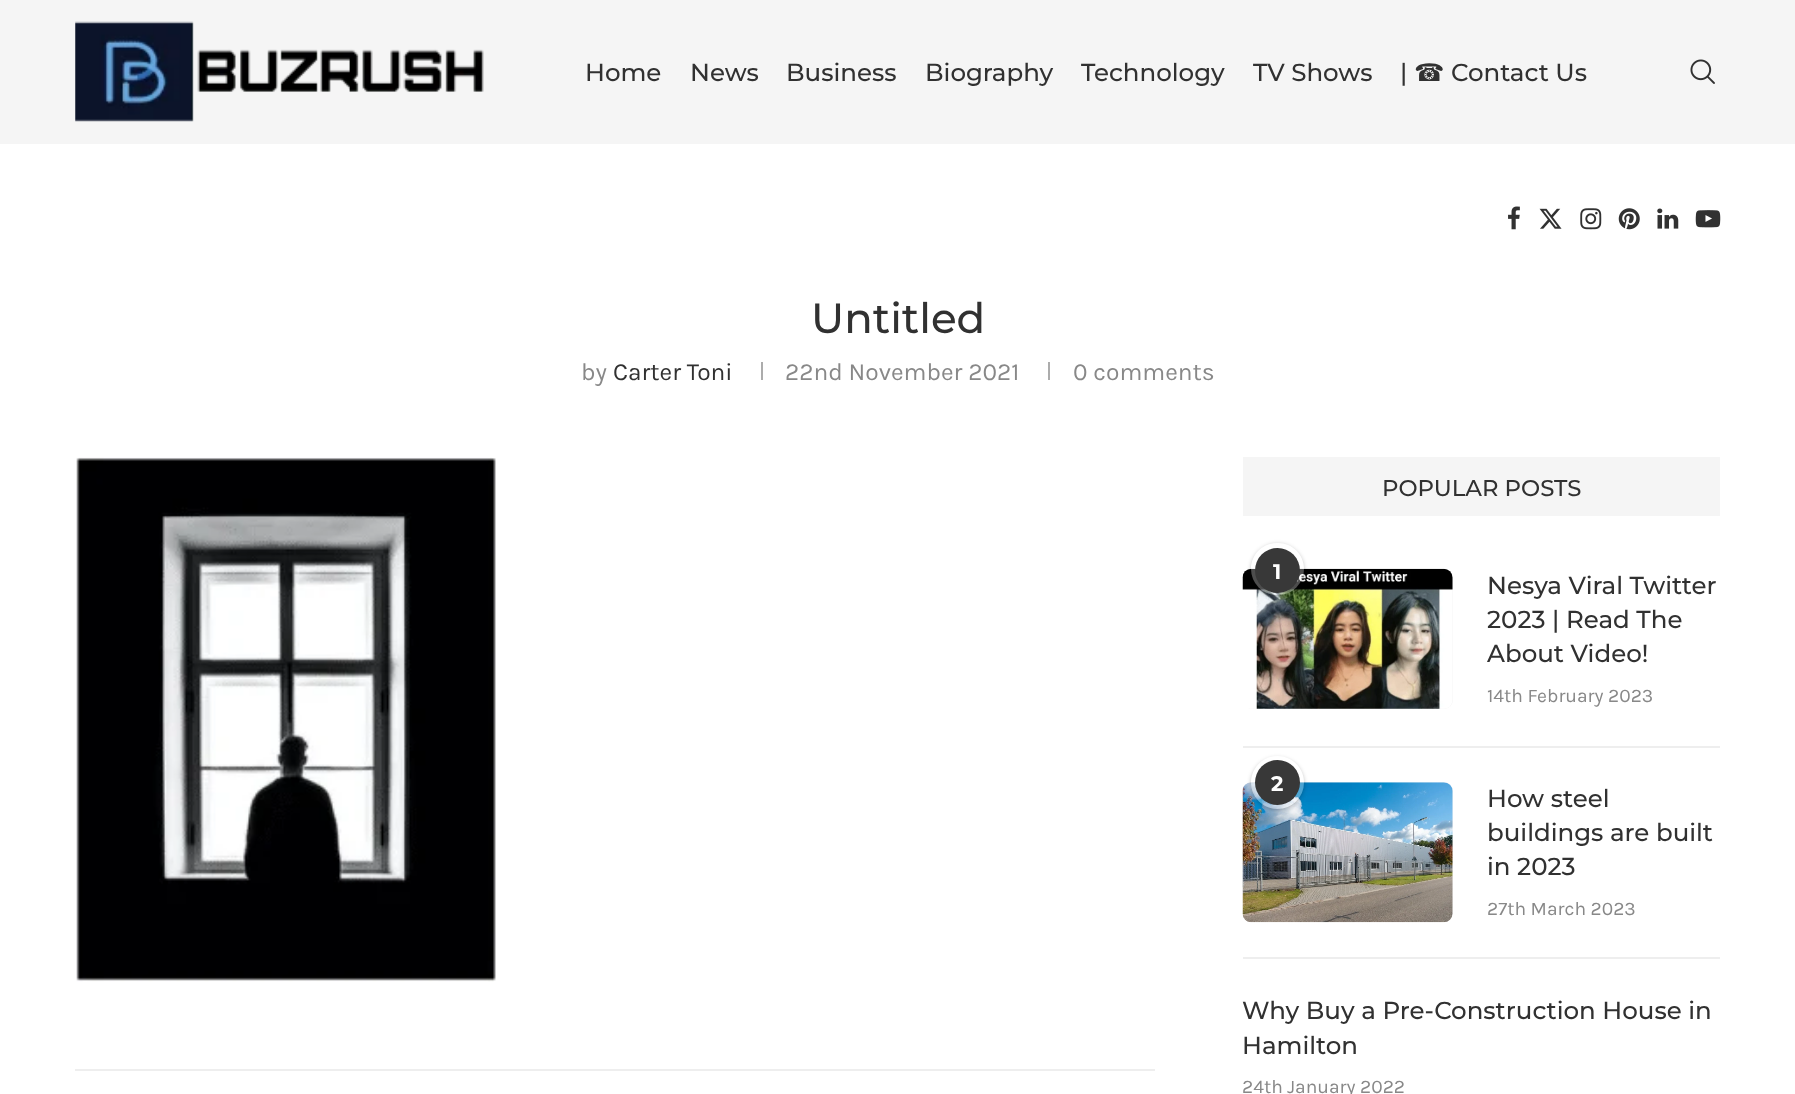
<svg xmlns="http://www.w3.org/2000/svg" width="1795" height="1094">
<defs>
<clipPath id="clip1"><path d="M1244 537h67v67h-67zm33 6h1c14.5 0 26 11.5 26 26c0 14.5-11.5 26-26 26h-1c-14.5 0-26-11.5-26-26c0-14.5 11.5-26 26-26z" clip-rule="evenodd"/></clipPath>
<clipPath id="clip2"><path d="M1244 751h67v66h-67zm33.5 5c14.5 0 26.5 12 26.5 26.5c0 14.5-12 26.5-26.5 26.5c-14.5 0-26.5-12-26.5-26.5c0-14.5 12-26.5 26.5-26.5z" clip-rule="evenodd"/></clipPath>
</defs>
<rect width="100%" height="100%" fill="#fff"/>
<rect width="1795" height="144" fill="#f5f5f5"/>
<image x="75" y="21" width="409" height="101" href="media/1.png"/>
<text x="585" y="81" style="font-family:Montserrat;font-size:24.5px;font-weight:500;fill:#313131">Home</text>
<text x="690" y="81" style="font-family:Montserrat;font-size:24.5px;font-weight:500;fill:#313131">News</text>
<text x="786" y="81" style="font-family:Montserrat;font-size:24.5px;font-weight:500;fill:#313131">Business</text>
<text x="925" y="81" style="font-family:Montserrat;font-size:24.5px;font-weight:500;fill:#313131">Biography</text>
<text x="1081" y="81" style="font-family:Montserrat;font-size:24.5px;font-weight:500;fill:#313131">Technology</text>
<text x="1253" y="81" style="font-family:Montserrat;font-size:24.5px;font-weight:500;fill:#313131">TV Shows</text>
<text x="1400" y="81" style="font-family:Montserrat;font-size:24.5px;font-weight:500;fill:#313131">|</text>
<text x="1414" y="81" style="font-family:DejaVu Sans;font-size:24.5px;fill:#313131">☎</text>
<text x="1451" y="81" style="font-family:Montserrat;font-size:24.5px;font-weight:500;fill:#313131">Contact Us</text>
<image x="1690" y="59" width="25" height="25" href="media/2.png"/>
<image x="1508" y="206" width="12" height="24" href="media/3.png"/>
<image x="1539" y="208" width="23" height="21" href="media/4.png"/>
<image x="1580" y="208" width="22" height="22" href="media/5.png"/>
<image x="1618" y="208" width="22" height="22" href="media/6.png"/>
<image x="1657" y="208" width="22" height="21" href="media/7.png"/>
<image x="1695" y="210" width="26" height="18" href="media/8.png"/>
<text x="811" y="333" style="font-family:Montserrat;font-size:42px;font-weight:500;fill:#313131">Untitled</text>
<text x="581" y="380" style="font-family:Karla;font-size:24.5px;fill:#888">by</text>
<text x="613" y="380" style="font-family:Karla;font-size:24.5px;fill:#313131">Carter Toni</text>
<rect x="761" y="362" width="2" height="18" fill="#acacac"/>
<text x="785" y="380" style="font-family:Karla;font-size:24.5px;fill:#888">22nd November 2021</text>
<rect x="1048" y="362" width="2" height="18" fill="#acacac"/>
<text x="1073" y="380" style="font-family:Karla;font-size:24.5px;fill:#888">0 comments</text>
<image x="76" y="457" width="420" height="525" href="media/9.png"/>
<rect x="75" y="1069" width="1080" height="2" fill="#eee"/>
<rect x="1243" y="457" width="477" height="59" fill="#f5f5f5"/>
<text x="1382" y="496" style="font-family:Montserrat;font-size:22.75px;font-weight:500;fill:#313131">POPULAR POSTS</text>
<rect x="1243" y="746" width="477" height="2" fill="#eee"/>
<rect x="1243" y="569" width="210" height="140" rx="9" fill="#f5f5f5"/>
<image x="1242" y="568" width="211" height="141" href="media/10.png"/>
<g clip-path="url(#clip1)">
<rect x="1251" y="544" width="53" height="53" rx="26.5" fill="#00000040" filter="blur(2px)"/>
</g>
<rect x="1251" y="543" width="53" height="52" rx="26" fill="#ffffff4d"/>
<circle cx="1277.5" cy="570.5" r="22.5" fill="#383838"/>
<text x="1273" y="579" style="font-family:Montserrat;font-size:21px;font-weight:bold;fill:#fff">1</text>
<text x="1487" y="594" style="font-family:Montserrat;font-size:24.5px;font-weight:500;fill:#313131">Nesya Viral Twitter</text>
<text x="1487" y="628" style="font-family:Montserrat;font-size:24.5px;font-weight:500;fill:#313131">2023 | Read The</text>
<text x="1487" y="662" style="font-family:Montserrat;font-size:24.5px;font-weight:500;fill:#313131">About Video!</text>
<text x="1487" y="702" style="font-family:Karla;font-size:19.25px;fill:#888">14th February 2023</text>
<rect x="1243" y="957" width="477" height="2" fill="#eee"/>
<rect x="1243" y="782" width="210" height="140" rx="9" fill="#f5f5f5"/>
<image x="1242" y="782" width="211" height="141" href="media/11.png"/>
<g clip-path="url(#clip2)">
<rect x="1251" y="758" width="53" height="52" rx="26" fill="#00000040" filter="blur(2px)"/>
</g>
<circle cx="1277.5" cy="782.5" r="26.5" fill="#ffffff4d"/>
<circle cx="1277.5" cy="782.5" r="22.5" fill="#383838"/>
<text x="1271" y="791" style="font-family:Montserrat;font-size:21px;font-weight:bold;fill:#fff">2</text>
<text x="1487" y="807" style="font-family:Montserrat;font-size:24.5px;font-weight:500;fill:#313131">How steel</text>
<text x="1487" y="841" style="font-family:Montserrat;font-size:24.5px;font-weight:500;fill:#313131">buildings are built</text>
<text x="1487" y="875" style="font-family:Montserrat;font-size:24.5px;font-weight:500;fill:#313131">in 2023</text>
<text x="1487" y="915" style="font-family:Karla;font-size:19.25px;fill:#888">27th March 2023</text>
<text x="1242" y="1019" style="font-family:Montserrat;font-size:24.5px;font-weight:500;fill:#313131">Why Buy a Pre-Construction House in</text>
<text x="1242" y="1054" style="font-family:Montserrat;font-size:24.5px;font-weight:500;fill:#313131">Hamilton</text>
<text x="1242" y="1093" style="font-family:Karla;font-size:19.25px;fill:#888">24th January 2022</text>
</svg>
